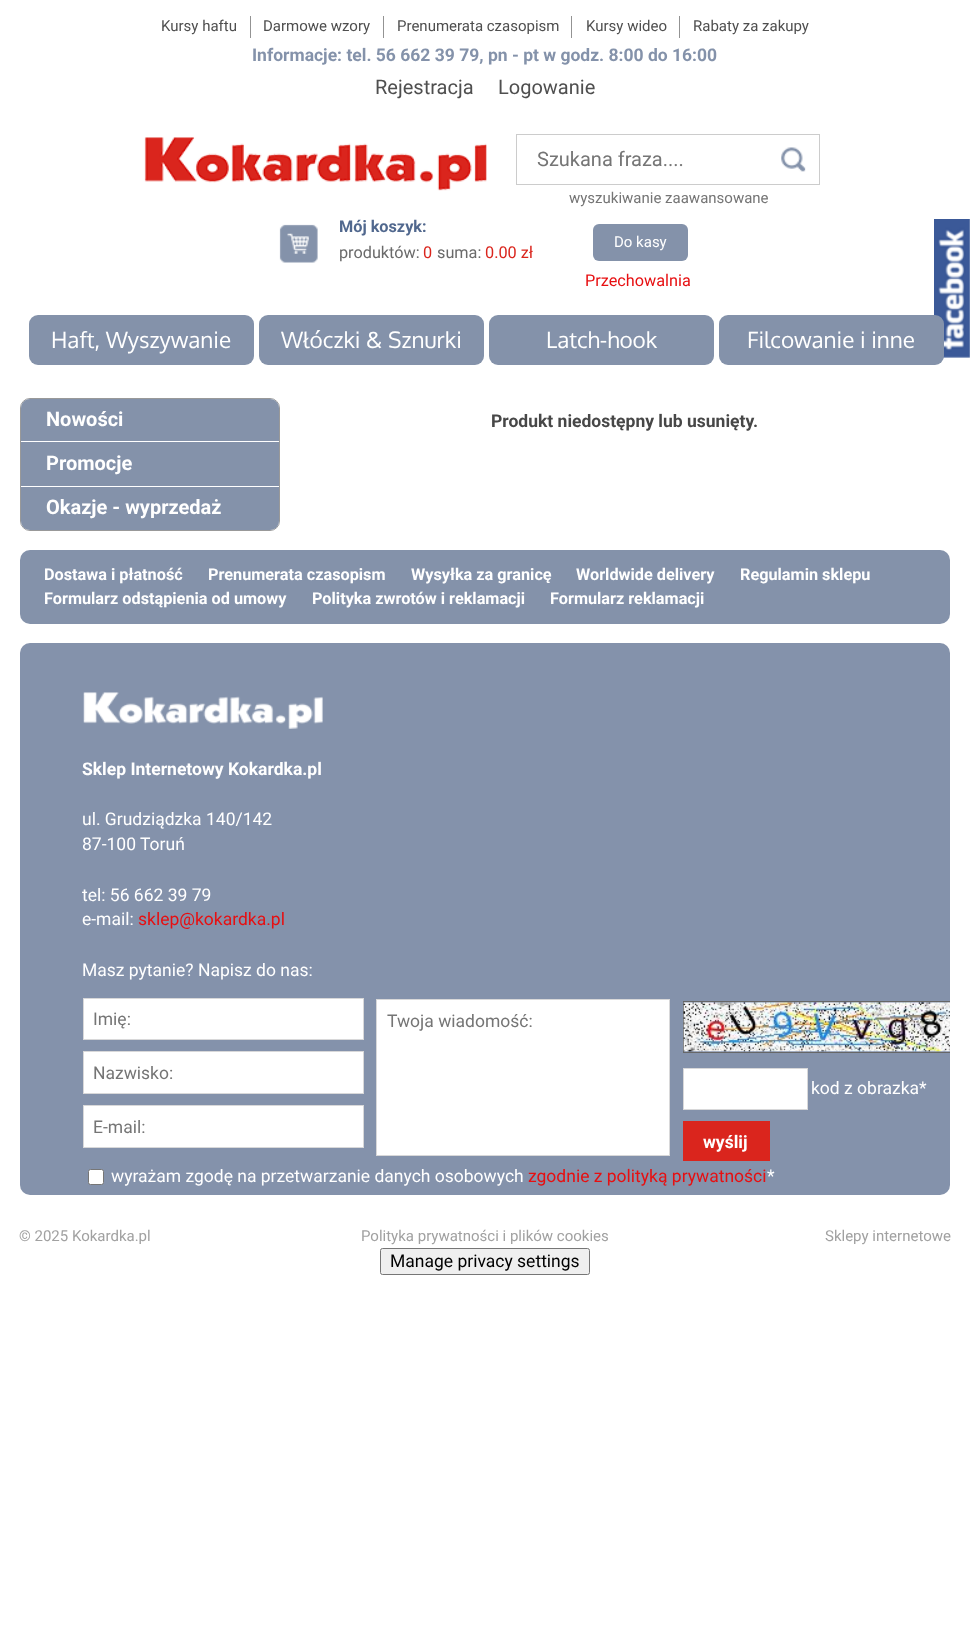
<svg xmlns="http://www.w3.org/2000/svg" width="970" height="1633">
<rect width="100%" height="100%" fill="#fff"/>
<rect x="250" y="16" width="1" height="22" fill="#939393"/>
<text x="161" y="31" style="font-family:Roboto;font-size:15px;fill:#4f4f4f">Kursy haftu</text>
<rect x="383" y="16" width="1" height="22" fill="#939393"/>
<text x="263" y="31" style="font-family:Roboto;font-size:15px;fill:#4f4f4f">Darmowe wzory</text>
<rect x="571" y="16" width="1" height="22" fill="#939393"/>
<text x="397" y="31" style="font-family:Roboto;font-size:15px;fill:#4f4f4f">Prenumerata czasopism</text>
<rect x="679" y="16" width="1" height="22" fill="#939393"/>
<text x="586" y="31" style="font-family:Roboto;font-size:15px;fill:#4f4f4f">Kursy wideo</text>
<text x="693" y="31" style="font-family:Roboto;font-size:15px;fill:#4f4f4f">Rabaty za zakupy</text>
<text x="252" y="61" style="font-family:Roboto;font-size:17.5px;font-weight:bold;fill:#8492aa">Informacje: tel. 56 662 39 79, pn - pt w godz. 8:00 do 16:00</text>
<text x="375" y="94" style="font-family:Roboto;font-size:20px;fill:#4f4f4f">Rejestracja</text>
<text x="498" y="94" style="font-family:Roboto;font-size:20px;fill:#4f4f4f">Logowanie</text>
<image x="144" y="137" width="343" height="54" href="media/1.png"/>
<rect x="516.5" y="134.5" width="303" height="50" fill="none" stroke="#ccc"/>
<text x="537" y="166" style="font-family:Roboto;font-size:20px;fill:#757575">Szukana fraza....</text>
<image x="781" y="147" width="25" height="25" href="media/2.png"/>
<text x="569" y="203" style="font-family:Roboto;font-size:15px;fill:#757575">wyszukiwanie zaawansowane</text>
<image x="279" y="224" width="39" height="39" href="media/3.png"/>
<text x="339" y="232" style="font-family:Roboto;font-size:16.25px;font-weight:bold;fill:#51688e">Mój koszyk:</text>
<text x="339" y="258" style="font-family:Roboto;font-size:16.25px;fill:#6a6a6a">produktów:</text>
<text x="423" y="258" style="font-family:Roboto;font-size:16.25px;fill:#da251d">0</text>
<text x="437" y="258" style="font-family:Roboto;font-size:16.25px;fill:#6a6a6a">suma:</text>
<text x="485" y="258" style="font-family:Roboto;font-size:16.25px;fill:#da251d">0.00 zł</text>
<rect x="593" y="224" width="95" height="37" rx="6" fill="#8492aa"/>
<text x="614" y="247" style="font-family:Roboto;font-size:15px;fill:#fff">Do kasy</text>
<text x="585" y="286" style="font-family:Roboto;font-size:16.25px;fill:#e70f11">Przechowalnia</text>
<rect x="29" y="315" width="225" height="50" rx="9" fill="#8492aa"/>
<text x="51" y="348" style="font-family:Oxygen;font-size:22.5px;fill:#fff">Haft, Wyszywanie</text>
<rect x="259" y="315" width="225" height="50" rx="9" fill="#8492aa"/>
<text x="281" y="348" style="font-family:Oxygen;font-size:22.5px;fill:#fff">Włóczki &amp; Sznurki</text>
<rect x="489" y="315" width="225" height="50" rx="9" fill="#8492aa"/>
<text x="546" y="348" style="font-family:Oxygen;font-size:22.5px;fill:#fff">Latch-hook</text>
<image x="934" y="219" width="36" height="139" href="media/6.png"/>
<rect x="719" y="315" width="225" height="50" rx="9" fill="#8492aa"/>
<text x="747" y="348" style="font-family:Oxygen;font-size:22.5px;fill:#fff">Filcowanie i inne</text>
<rect x="20.5" y="398.5" width="259" height="132" rx="9.5" fill="none" stroke="#999"/>
<path d="M30 399h240c5 0 9 4 9 9v35h-258v-35c0-5 4-9 9-9z" fill="#8492aa"/>
<rect x="21" y="441" width="258" height="1" fill="#fff"/>
<text x="46" y="426" style="font-family:Roboto;font-size:20px;font-weight:bold;fill:#fff">Nowości</text>
<rect x="21" y="443" width="258" height="45" fill="#8492aa"/>
<rect x="21" y="486" width="258" height="1" fill="#fff"/>
<text x="46" y="470" style="font-family:Roboto;font-size:20px;font-weight:bold;fill:#fff">Promocje</text>
<path d="M21 488h258v33c0 5-4 9-9 9h-240c-5 0-9-4-9-9z" fill="#8492aa"/>
<text x="46" y="514" style="font-family:Roboto;font-size:20px;font-weight:bold;fill:#fff">Okazje - wyprzedaż</text>
<text x="491" y="427" style="font-family:Roboto;font-size:17.5px;font-weight:bold;fill:#474747">Produkt niedostępny lub usunięty.</text>
<rect x="20" y="550" width="930" height="74" rx="10" fill="#8492aa"/>
<text x="44" y="580" style="font-family:Roboto;font-size:16.25px;font-weight:bold;fill:#fff">Dostawa i płatność</text>
<text x="208" y="580" style="font-family:Roboto;font-size:16.25px;font-weight:bold;fill:#fff">Prenumerata czasopism</text>
<text x="411" y="580" style="font-family:Roboto;font-size:16.25px;font-weight:bold;fill:#fff">Wysyłka za granicę</text>
<text x="576" y="580" style="font-family:Roboto;font-size:16.25px;font-weight:bold;fill:#fff">Worldwide delivery</text>
<text x="740" y="580" style="font-family:Roboto;font-size:16.25px;font-weight:bold;fill:#fff">Regulamin sklepu</text>
<text x="44" y="604" style="font-family:Roboto;font-size:16.25px;font-weight:bold;fill:#fff">Formularz odstąpienia od umowy</text>
<text x="312" y="604" style="font-family:Roboto;font-size:16.25px;font-weight:bold;fill:#fff">Polityka zwrotów i reklamacji</text>
<text x="550" y="604" style="font-family:Roboto;font-size:16.25px;font-weight:bold;fill:#fff">Formularz reklamacji</text>
<rect x="20" y="643" width="930" height="552" rx="10" fill="#8492ab"/>
<image x="83" y="692" width="240" height="37" href="media/4.png"/>
<text x="82" y="775" style="font-family:Roboto;font-size:17.5px;font-weight:bold;fill:#fff">Sklep Internetowy Kokardka.pl</text>
<text x="82" y="825" style="font-family:Roboto;font-size:17.5px;fill:#fff">ul. Grudziądzka 140/142</text>
<text x="82" y="850" style="font-family:Roboto;font-size:17.5px;fill:#fff">87-100</text>
<text x="140" y="850" style="font-family:Roboto;font-size:17.5px;fill:#fff">Toruń</text>
<text x="82" y="901" style="font-family:Roboto;font-size:17.5px;fill:#fff">tel: 56 662 39 79</text>
<text x="82" y="925" style="font-family:Roboto;font-size:17.5px;fill:#fff">e-mail:</text>
<text x="138" y="925" style="font-family:Roboto;font-size:17.5px;fill:#e70f11">sklep@kokardka.pl</text>
<text x="82" y="976" style="font-family:Roboto;font-size:17.5px;fill:#fff">Masz pytanie? Napisz do nas:</text>
<rect x="83.5" y="998.5" width="280" height="41" fill="#fff" stroke="#d8d8d9"/>
<text x="93" y="1025" style="font-family:Roboto;font-size:17.5px;fill:#757575">Imię:</text>
<rect x="83.5" y="1051.5" width="280" height="42" fill="#fff" stroke="#d8d8d9"/>
<text x="93" y="1079" style="font-family:Roboto;font-size:17.5px;fill:#757575">Nazwisko:</text>
<rect x="83.5" y="1105.5" width="280" height="42" fill="#fff" stroke="#d8d8d9"/>
<text x="93" y="1133" style="font-family:Roboto;font-size:17.5px;fill:#757575">E-mail:</text>
<rect x="376.5" y="999.5" width="293" height="156" fill="#fff" stroke="#d8d8d9"/>
<text x="387" y="1027" style="font-family:Roboto;font-size:17.5px;fill:#757575">Twoja wiadomość:</text>
<path d="M683 1001v52h267v-1h-266v-50h266v-1z" fill="#666"/>
<image x="683" y="1002" width="267" height="50" href="media/5.png"/>
<rect x="683.5" y="1068.5" width="124" height="41" fill="#fff" stroke="#d8d8d9"/>
<text x="811" y="1094" style="font-family:Roboto;font-size:17.5px;fill:#fff">kod z obrazka*</text>
<rect x="683" y="1121" width="87" height="40" fill="#da251d"/>
<text x="703" y="1148" style="font-family:Roboto;font-size:17.5px;font-weight:bold;fill:#fff">wyślij</text>
<rect x="88.5" y="1169.5" width="15" height="15" rx="2" fill="#fff" stroke="#767676"/>
<text x="111" y="1182" style="font-family:Roboto;font-size:17.5px;fill:#fff">wyrażam zgodę na przetwarzanie danych osobowych</text>
<text x="528" y="1182" style="font-family:Roboto;font-size:17.5px;fill:#e70f11">zgodnie z polityką prywatności</text>
<text x="767" y="1182" style="font-family:Roboto;font-size:17.5px;fill:#fff">*</text>
<text x="19" y="1241" style="font-family:Roboto;font-size:15px;fill:#a1a1a1">© 2025 Kokardka.pl</text>
<text x="361" y="1241" style="font-family:Roboto;font-size:15px;fill:#a1a1a1">Polityka prywatności i plików cookies</text>
<text x="825" y="1241" style="font-family:Roboto;font-size:15px;fill:#a1a1a1">Sklepy internetowe</text>
<rect x="380.5" y="1248.5" width="209" height="26" rx="2" fill="#efefef" stroke="#767676"/>
<text x="390" y="1267" style="font-family:Roboto;font-size:17.5px;fill:#000">Manage privacy settings</text>
</svg>
